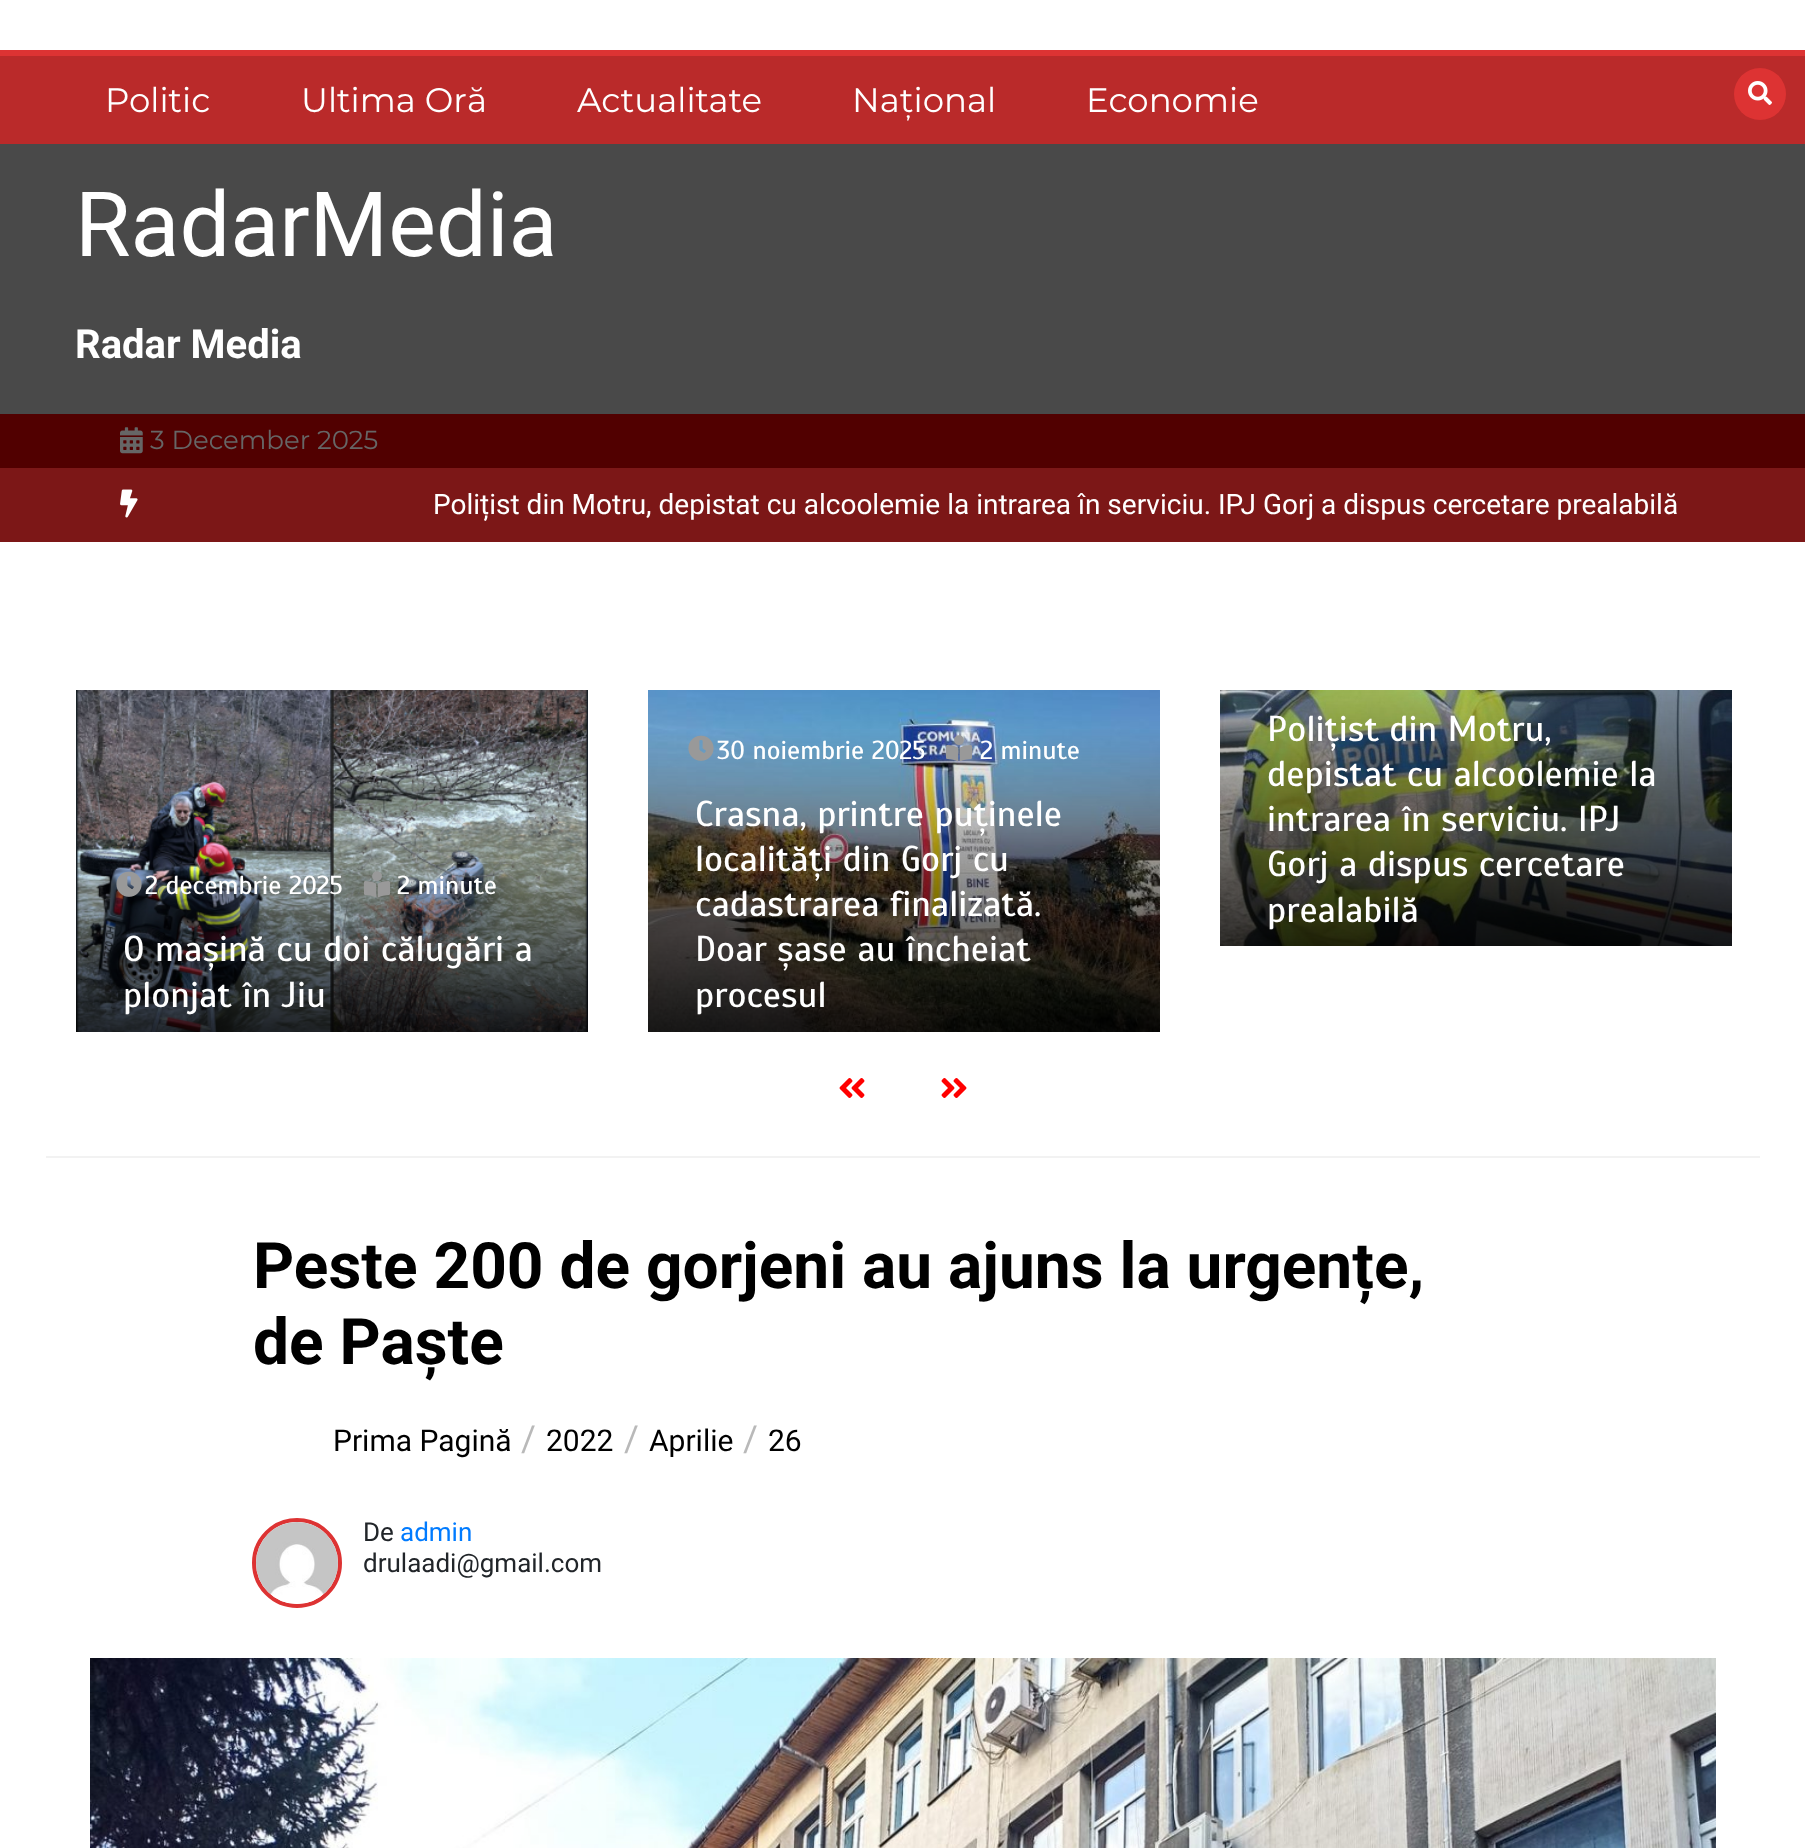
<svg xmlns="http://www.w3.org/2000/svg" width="1805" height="1848">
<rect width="100%" height="100%" fill="#fff"/>
<rect y="56" width="1805" height="88" fill="#ba2a2a"/>
<rect y="50" width="1805" height="6" fill="#d33"/>
<text x="105" y="112" style="font-family:Montserrat;font-size:34px;fill:#fff">Politic</text>
<text x="301" y="112" style="font-family:Montserrat;font-size:34px;fill:#fff">Ultima Oră</text>
<text x="577" y="112" style="font-family:Montserrat;font-size:34px;fill:#fff">Actualitate</text>
<text x="852" y="112" style="font-family:Montserrat;font-size:34px;fill:#fff">Național</text>
<text x="1086" y="112" style="font-family:Montserrat;font-size:34px;fill:#fff">Economie</text>
<circle cx="1760" cy="94" r="26" fill="#d33"/>
<image x="1748" y="81" width="24" height="24" href="media/1.png"/>
<rect y="144" width="1805" height="270" fill="#494949"/>
<text x="75" y="256" style="font-family:Roboto;font-size:90px;fill:#fff">RadarMedia</text>
<text x="75" y="358" style="font-family:Roboto;font-size:40px;font-weight:bold;fill:#fff">Radar Media</text>
<rect y="414" width="1805" height="54" fill="#510000"/>
<image x="120" y="427" width="23" height="27" href="media/2.png"/>
<text x="150" y="449" style="font-family:Montserrat;font-size:26px;fill:#666">3 December 2025</text>
<rect y="468" width="1805" height="74" fill="#7c1717"/>
<image x="120" y="489" width="18" height="29" href="media/3.png"/>
<text x="433" y="514" style="font-family:Roboto;font-size:28px;fill:#fff">Polițist din Motru, depistat cu alcoolemie la intrarea în serviciu. IPJ Gorj a dispus cercetare prealabilă</text>
<rect x="46" y="1156" width="1714" height="2" fill="#f2f2f2"/>
<image x="76" y="690" width="512" height="342" href="media/4.png"/>
<image x="116" y="871" width="26" height="26" href="media/5.png"/>
<text x="145" y="894" style="font-family:Scada;font-size:26px;fill:#fff">2 decembrie 2025</text>
<image x="364" y="871" width="26" height="27" href="media/6.png"/>
<text x="397" y="894" style="font-family:Scada;font-size:26px;fill:#fff">2 minute</text>
<text x="123" y="961" style="font-family:Scada;font-size:36px;fill:#fff">O mașină cu doi călugări a</text>
<text x="123" y="1007" style="font-family:Scada;font-size:36px;fill:#fff">plonjat în Jiu</text>
<image x="648" y="690" width="512" height="342" href="media/7.png"/>
<image x="688" y="735" width="26" height="26" href="media/8.png"/>
<text x="717" y="759" style="font-family:Scada;font-size:26px;fill:#fff">30 noiembrie 2025</text>
<image x="946" y="735" width="26" height="27" href="media/9.png"/>
<text x="980" y="759" style="font-family:Scada;font-size:26px;fill:#fff">2 minute</text>
<text x="695" y="826" style="font-family:Scada;font-size:36px;fill:#fff">Crasna, printre puținele</text>
<text x="695" y="871" style="font-family:Scada;font-size:36px;fill:#fff">localități din Gorj cu</text>
<text x="695" y="916" style="font-family:Scada;font-size:36px;fill:#fff">cadastrarea finalizată.</text>
<text x="695" y="961" style="font-family:Scada;font-size:36px;fill:#fff">Doar șase au încheiat</text>
<text x="695" y="1007" style="font-family:Scada;font-size:36px;fill:#fff">procesul</text>
<image x="1220" y="690" width="512" height="256" href="media/10.png"/>
<text x="1267" y="741" style="font-family:Scada;font-size:36px;fill:#fff">Polițist din Motru,</text>
<text x="1267" y="786" style="font-family:Scada;font-size:36px;fill:#fff">depistat cu alcoolemie la</text>
<text x="1267" y="831" style="font-family:Scada;font-size:36px;fill:#fff">intrarea în serviciu. IPJ</text>
<text x="1267" y="876" style="font-family:Scada;font-size:36px;fill:#fff">Gorj a dispus cercetare</text>
<text x="1267" y="922" style="font-family:Scada;font-size:36px;fill:#fff">prealabilă</text>
<image x="839" y="1078" width="26" height="20" href="media/11.png"/>
<image x="941" y="1078" width="26" height="20" href="media/12.png"/>
<text x="253" y="1288" style="font-family:Roboto;font-size:64px;font-weight:bold;fill:#000">Peste 200 de gorjeni au ajuns la urgențe,</text>
<text x="253" y="1364" style="font-family:Roboto;font-size:64px;font-weight:bold;fill:#000">de Paște</text>
<text x="333" y="1451" style="font-family:Roboto;font-size:30px;fill:#000">Prima Pagină</text>
<text x="521" y="1451" style="font-family:Roboto;font-size:36px;fill:#b9b9b9">/</text>
<text x="546" y="1451" style="font-family:Roboto;font-size:30px;fill:#000">2022</text>
<text x="624" y="1451" style="font-family:Roboto;font-size:36px;fill:#b9b9b9">/</text>
<text x="649" y="1451" style="font-family:Roboto;font-size:30px;fill:#000">Aprilie</text>
<text x="743" y="1451" style="font-family:Roboto;font-size:36px;fill:#b9b9b9">/</text>
<text x="768" y="1451" style="font-family:Roboto;font-size:30px;fill:#000">26</text>
<circle cx="297" cy="1563" r="43" fill="none" stroke="#d33" stroke-width="4"/>
<image x="256" y="1522" width="82" height="82" href="media/13.png"/>
<text x="363" y="1541" style="font-family:Roboto;font-size:26px;fill:#212529">De</text>
<text x="400" y="1541" style="font-family:Roboto;font-size:26px;fill:#007bff">admin</text>
<text x="363" y="1572" style="font-family:Roboto;font-size:26px;fill:#212529">drulaadi@gmail.com</text>
<image x="90" y="1658" width="1626" height="190" href="media/14.png"/>
</svg>
